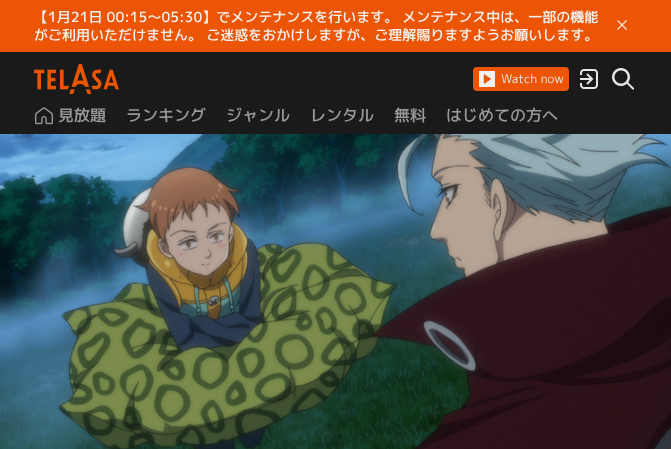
<svg xmlns="http://www.w3.org/2000/svg" width="671" height="449">
<rect width="100%" height="100%" fill="#1a1a1a"/>
<rect width="671" height="52" fill="#eb5505"/>
<text x="34" y="22" style="font-family:'M PLUS 1p';font-size:14px;font-weight:500;fill:#f2f2f2">【1月21日 00:15～05:30】でメンテナンスを行います。 メンテナンス中は、一部の機能</text>
<text x="34" y="40" style="font-family:'M PLUS 1p';font-size:14px;font-weight:500;fill:#f2f2f2">がご利用いただけません。 ご迷惑をおかけしますが、ご理解賜りますようお願いします。</text>
<image x="617" y="20" width="10" height="10" href="media/1.png"/>
<image x="34" y="64" width="85" height="30" href="media/2.png"/>
<rect x="473" y="67" width="96" height="24" rx="4" fill="#eb5505"/>
<image x="479" y="71" width="16" height="16" href="media/3.png"/>
<text x="501" y="83" style="font-family:'M PLUS 1p';font-size:12px;fill:#e6e6e6">Watch now</text>
<image x="580" y="69" width="18" height="20" href="media/4.png"/>
<image x="612" y="68" width="23" height="22" href="media/5.png"/>
<image x="35" y="107" width="18" height="18" href="media/6.png"/>
<text x="58" y="121" style="font-family:'M PLUS 1p';font-size:16px;font-weight:500;fill:#999">見放題</text>
<text x="126" y="121" style="font-family:'M PLUS 1p';font-size:16px;font-weight:500;fill:#999">ランキング</text>
<text x="226" y="121" style="font-family:'M PLUS 1p';font-size:16px;font-weight:500;fill:#999">ジャンル</text>
<text x="310" y="121" style="font-family:'M PLUS 1p';font-size:16px;font-weight:500;fill:#999">レンタル</text>
<text x="394" y="121" style="font-family:'M PLUS 1p';font-size:16px;font-weight:500;fill:#999">無料</text>
<text x="446" y="121" style="font-family:'M PLUS 1p';font-size:16px;font-weight:500;fill:#999">はじめての方へ</text>
<image x="0" y="134" width="671" height="315" href="media/7.png"/>
</svg>
